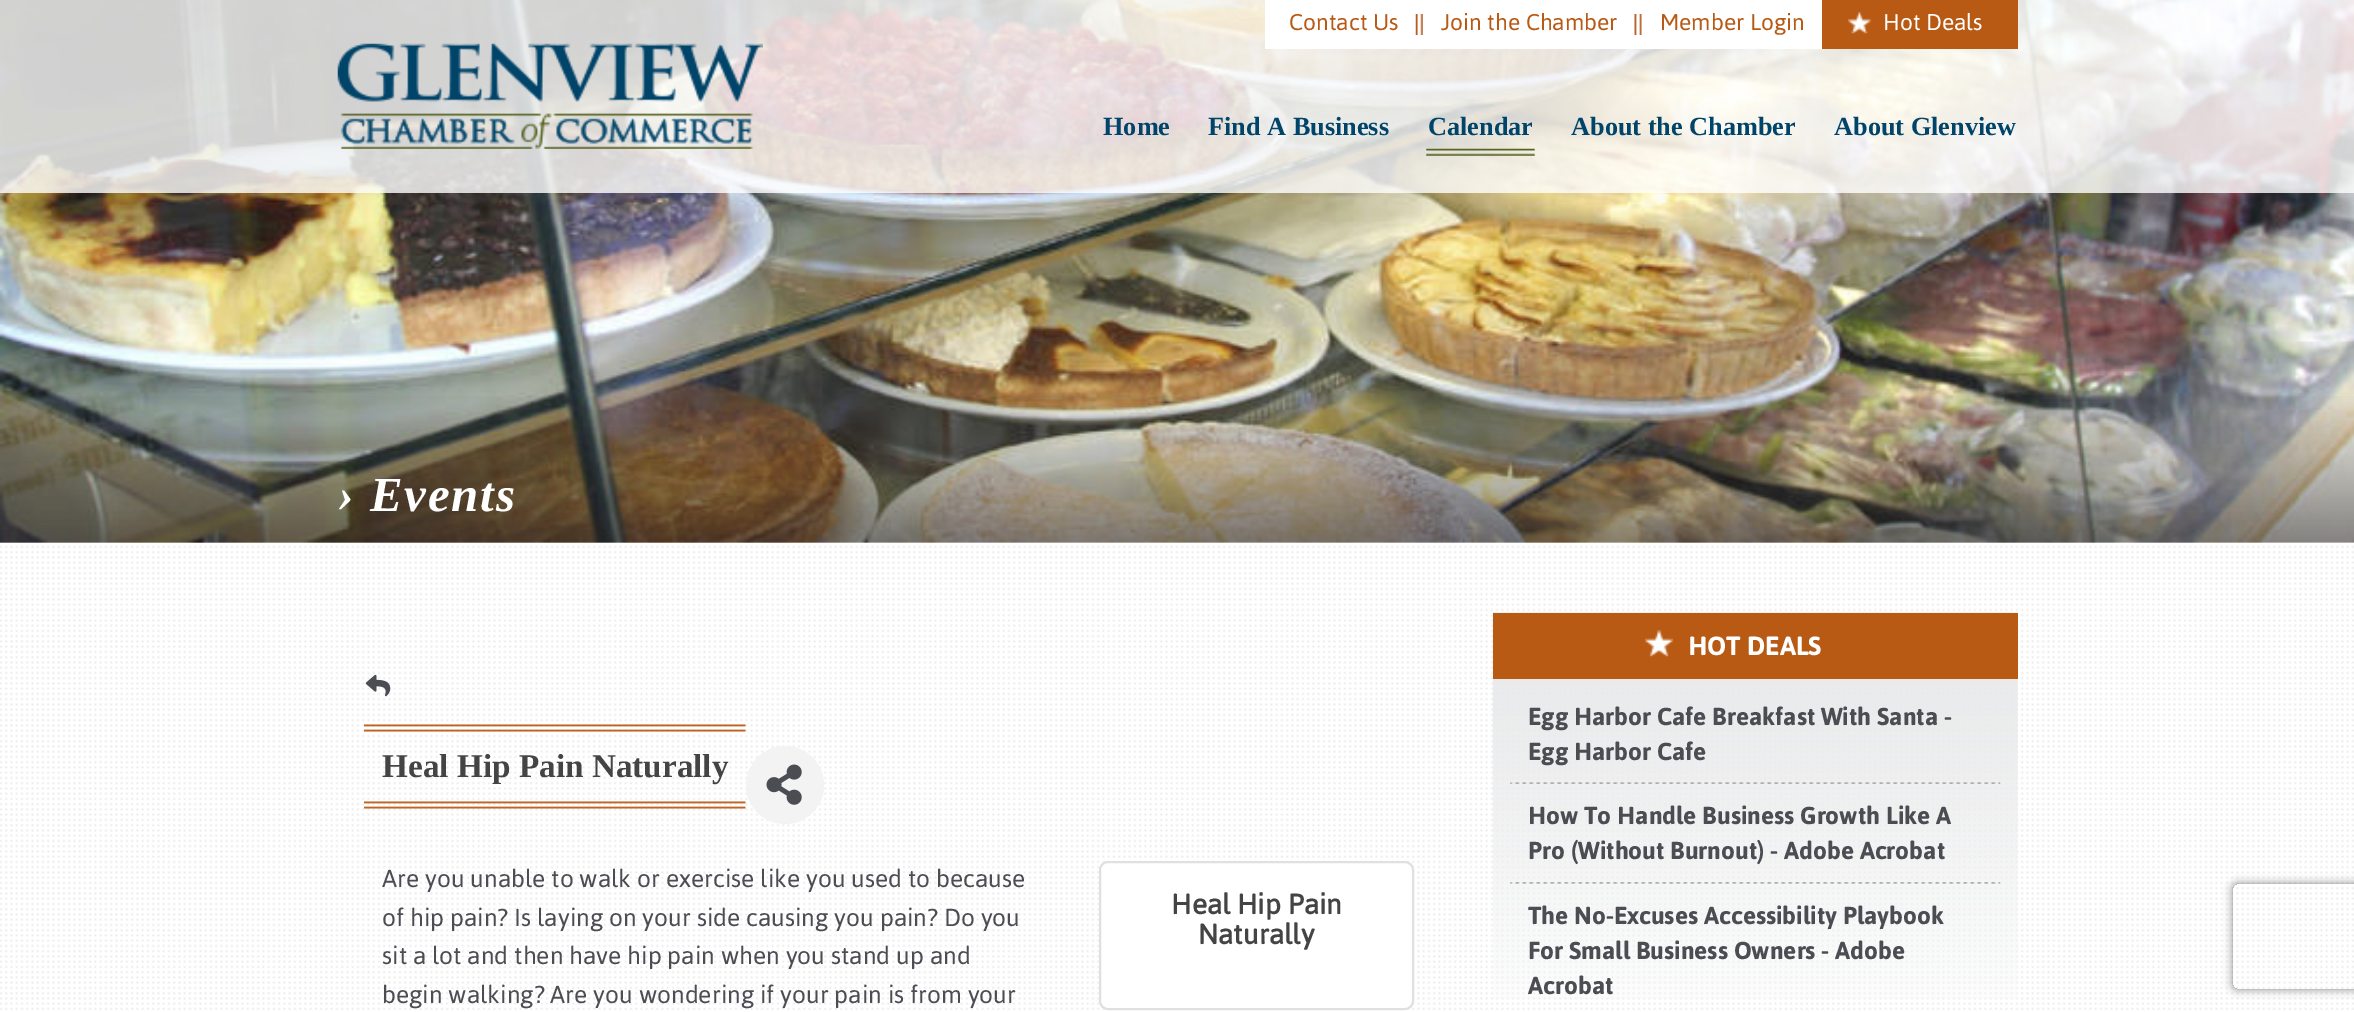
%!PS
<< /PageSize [2354 1012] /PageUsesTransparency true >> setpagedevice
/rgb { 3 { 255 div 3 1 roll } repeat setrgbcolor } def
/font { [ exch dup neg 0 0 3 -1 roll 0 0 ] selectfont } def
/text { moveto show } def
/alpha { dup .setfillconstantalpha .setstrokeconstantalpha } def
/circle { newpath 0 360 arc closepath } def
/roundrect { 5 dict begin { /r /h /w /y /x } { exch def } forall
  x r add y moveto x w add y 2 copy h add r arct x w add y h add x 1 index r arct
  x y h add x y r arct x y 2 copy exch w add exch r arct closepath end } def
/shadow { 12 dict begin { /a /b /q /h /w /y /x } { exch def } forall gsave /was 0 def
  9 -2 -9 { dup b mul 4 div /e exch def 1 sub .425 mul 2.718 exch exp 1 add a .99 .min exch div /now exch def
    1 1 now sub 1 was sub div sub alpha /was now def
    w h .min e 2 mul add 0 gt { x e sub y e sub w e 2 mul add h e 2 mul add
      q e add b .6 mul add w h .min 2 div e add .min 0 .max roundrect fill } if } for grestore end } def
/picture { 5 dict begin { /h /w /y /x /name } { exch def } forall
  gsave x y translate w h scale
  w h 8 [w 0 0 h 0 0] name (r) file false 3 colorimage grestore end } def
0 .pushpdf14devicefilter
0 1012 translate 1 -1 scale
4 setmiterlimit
255 255 255 rgb
0 0 2354 1012 rectfill
(img_01.rgb) 0 543 2354 467 picture
216 216 216 rgb
0 542 2354 1 rectfill
(img_02.rgb) 0 0 2354 543 picture
0.8 alpha
255 255 255 rgb
0 0 2354 193 rectfill
1 alpha
1265 0 557 49 rectfill
(img_03.rgb) 1415 14 8 21 picture
(img_04.rgb) 1634 14 8 21 picture
184 89 20 rgb
1822 0 196 49 rectfill
(img_05.rgb) 1848 12 23 22 picture
(img_06.rgb) 337 43 426 106 picture
(img_07.rgb) 1426 148 109 8 picture
(img_08.rgb) 0 396 2354 147 picture
(img_09.rgb) 365 674 26 23 picture
(img_10.rgb) 364 724 382 85 picture
243 243 243 rgb
785 785 39 circle fill
(img_11.rgb) 766 764 36 41 picture
255 255 255 rgb
1099 861 315 149 9 roundrect fill
0.12 alpha
0 0 0 rgb
2 setlinewidth
1100 862 313 147 8 roundrect stroke
1 alpha
(img_12.rgb) 1492 612 526 387 picture
184 89 20 rgb
1493 613 525 66 rectfill
(img_13.rgb) 1645 630 28 27 picture
(img_14.rgb) 1510 782 491 2 picture
(img_15.rgb) 1510 882 491 2 picture
gsave
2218 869 moveto 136 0 rlineto 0 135 rlineto -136 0 rlineto closepath 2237 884 moveto 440 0 rlineto 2 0 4 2 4 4 rcurveto 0 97 rlineto 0 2 -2 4 -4 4 rcurveto -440 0 rlineto -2 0 -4 -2 -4 -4 rcurveto 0 -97 rlineto 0 -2 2 -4 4 -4 rcurveto closepath eoclip newpath
128 128 128 rgb
2233 884 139 105 4 4.5 1 shadow
grestore
/Asap-Regular 22.75 font
(Contact Us) 1289 30 text
(Join the Chamber) 1441 30 text
(Member Login) 1660 30 text
255 255 255 rgb
(Hot Deals) 1883 30 text
/LiberationSerif-Bold 26.25 font
0 68 106 rgb
(Home) 1103 135 text
(Find A Business) 1208 135 text
(Calendar) 1428 135 text
(About the Chamber) 1571 135 text
(About Glenview) 1834 135 text
/LiberationSerif-BoldItalic 49 font
255 255 255 rgb
338 511 moveto 1.75 0 (› Events) ashow
/LiberationSerif-Bold 33.25 font
68 68 68 rgb
(Heal Hip Pain Naturally) 382 777 text
/Asap-Regular 24.5 font
76 76 83 rgb
(Are you unable to walk or exercise like you used to because) 382 887 text
(of hip pain? Is laying on your side causing you pain? Do you) 382 926 text
(sit a lot and then have hip pain when you stand up and) 382 964 text
(begin walking? Are you wondering if your pain is from your) 382 1003 text
/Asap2-Bold 28 font
68 68 68 rgb
(Heal Hip Pain) 1171 914 text
(Naturally) 1198 944 text
/Asap-Bold 26.25 font
255 255 255 rgb
(HOT DEALS) 1688 655 text
/Asap-Bold 24.5 font
76 76 83 rgb
(Egg Harbor Cafe Breakfast With Santa -) 1528 725 text
(Egg Harbor Cafe) 1528 760 text
(How To Handle Business Growth Like A) 1528 824 text
(Pro \(Without Burnout\) - Adobe Acrobat) 1528 859 text
(The No-Excuses Accessibility Playbook) 1528 924 text
(For Small Business Owners - Adobe) 1528 959 text
(Acrobat) 1528 994 text
.poppdf14devicefilter showpage
